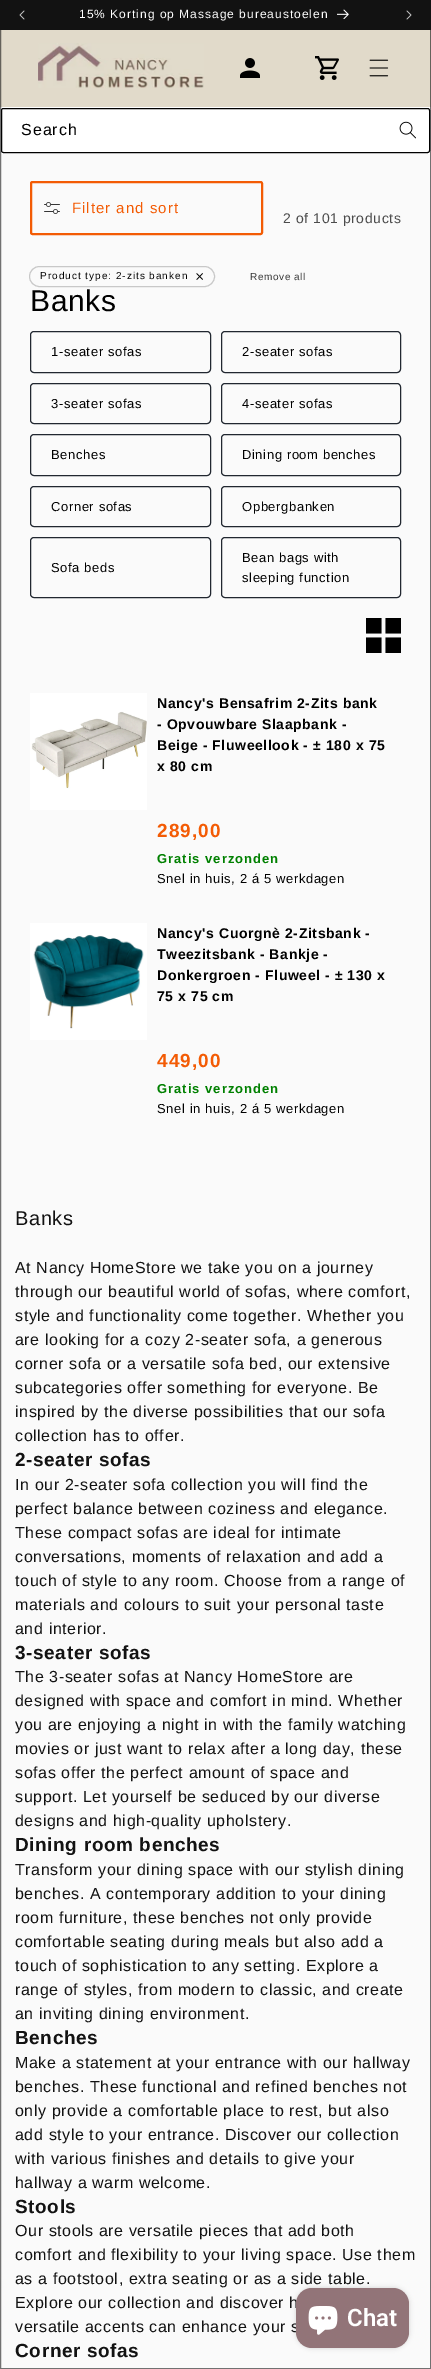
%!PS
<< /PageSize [431 2369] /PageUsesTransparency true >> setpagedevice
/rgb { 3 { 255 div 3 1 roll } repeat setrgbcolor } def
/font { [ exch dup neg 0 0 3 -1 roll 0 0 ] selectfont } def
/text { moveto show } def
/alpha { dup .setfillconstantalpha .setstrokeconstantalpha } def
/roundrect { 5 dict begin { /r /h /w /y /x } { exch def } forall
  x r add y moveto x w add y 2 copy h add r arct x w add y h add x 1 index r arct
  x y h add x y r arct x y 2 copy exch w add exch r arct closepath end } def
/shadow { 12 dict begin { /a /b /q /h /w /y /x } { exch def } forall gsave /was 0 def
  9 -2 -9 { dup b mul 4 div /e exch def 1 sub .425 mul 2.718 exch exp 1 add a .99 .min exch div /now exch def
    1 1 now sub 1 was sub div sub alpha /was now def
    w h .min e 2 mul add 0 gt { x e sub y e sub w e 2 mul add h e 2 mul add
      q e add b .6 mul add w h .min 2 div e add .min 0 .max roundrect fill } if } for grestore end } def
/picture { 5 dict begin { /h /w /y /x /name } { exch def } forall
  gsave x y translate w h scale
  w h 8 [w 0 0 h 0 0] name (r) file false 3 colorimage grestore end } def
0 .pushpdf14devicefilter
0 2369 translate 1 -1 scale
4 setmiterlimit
250 250 250 rgb
0 0 431 2369 rectfill
225 218 202 rgb
0 30 431 77 rectfill
(img_04.rgb) 38 43 166 45 picture
(img_05.rgb) 240 58 20 20 picture
(img_06.rgb) 315 56 24 24 picture
(img_07.rgb) 369 59 20 18 picture
255 255 255 rgb
0 107 431 47 rectfill
0 0 0 rgb
1.5 108.5 428 44 2 roundrect stroke
(img_08.rgb) 399 121 17 18 picture
243 91 4 rgb
2 setlinewidth
31 182 231 52 1.5 roundrect stroke
(img_09.rgb) 44 202 16 12 picture
200 200 200 rgb
1 setlinewidth
29.5 266.5 185 20 10 roundrect stroke
(img_10.rgb) 196 273 7 7 picture
33 39 48 rgb
30.5 331.5 180 41 3.5 roundrect stroke
221.5 331.5 179 41 3.5 roundrect stroke
30.5 383.5 180 40 3.5 roundrect stroke
221.5 383.5 179 40 3.5 roundrect stroke
30.5 434.5 180 41 3.5 roundrect stroke
221.5 434.5 179 41 3.5 roundrect stroke
30.5 486.5 180 40 3.5 roundrect stroke
221.5 486.5 179 40 3.5 roundrect stroke
30.5 537.5 180 60 3.5 roundrect stroke
221.5 537.5 179 60 3.5 roundrect stroke
(img_11.rgb) 366 618 35 35 picture
(img_12.rgb) 30 693 117 117 picture
(img_13.rgb) 30 923 117 117 picture
0.55 alpha
0 0 0 rgb
0.5 0.5 430 2368 rectstroke
1 alpha
18 18 18 rgb
0 0 431 30 rectfill
(img_01.rgb) 19 10 6 10 picture
(img_02.rgb) 337 9 12 10 picture
(img_03.rgb) 406 10 6 10 picture
0 0 0 rgb
296 2288 113 60 16 2.5 0.15 shadow
/Arimo-Regular 12 font
255 255 255 rgb
79 18 moveto 1 0 (15% Korting op Massage bureaustoelen) ashow
/Arimo-Regular 16 font
0 0 0 rgb
21 135 moveto 1 0 (Search) ashow
/Arimo-Regular 15 font
243 91 4 rgb
72 213 moveto 1 0 (Filter and sort) ashow
/Arimo-Regular 14 font
75 75 75 rgb
283 223 moveto 0.6 0 (2 of 101 products) ashow
/Arimo-Regular 10 font
0 0 0 rgb
40 279 moveto 1 0 (Product type: 2-zits banken) ashow
53 53 53 rgb
250 280 moveto 0.6 0 (Remove all) ashow
/Arimo-Regular 30 font
0 0 0 rgb
30 311 moveto 0.6 0 (Banks) ashow
/Arimo-Regular 13 font
51 356 moveto 0.6 0 (1-seater sofas) ashow
242 356 moveto 0.6 0 (2-seater sofas) ashow
51 408 moveto 0.6 0 (3-seater sofas) ashow
242 408 moveto 0.6 0 (4-seater sofas) ashow
51 459 moveto 0.6 0 (Benches) ashow
242 459 moveto 0.6 0 (Dining room benches) ashow
51 511 moveto 0.6 0 (Corner sofas) ashow
242 511 moveto 0.6 0 (Opbergbanken) ashow
51 572 moveto 0.6 0 (Sofa beds) ashow
242 562 moveto 0.6 0 (Bean bags with) ashow
242 582 moveto 0.6 0 (sleeping function) ashow
/Arimo-Bold 14 font
157 708 moveto 0.6 0 (Nancy's Bensafrim 2-Zits bank) ashow
157 729 moveto 0.6 0 (- Opvouwbare Slaapbank -) ashow
157 750 moveto 0.6 0 (Beige - Fluweellook - ± 180 x 75) ashow
157 771 moveto 0.6 0 (x 80 cm) ashow
/Arimo-Bold 19 font
243 91 4 rgb
157 837 moveto 1 0 (289,00) ashow
/Arimo-Bold 13 font
0 128 0 rgb
157 863 moveto 1 0 (Gratis verzonden) ashow
/Arimo-Regular 13 font
0 0 0 rgb
157 883 moveto 0.6 0 (Snel in huis, 2 á 5 werkdagen) ashow
/Arimo-Bold 14 font
157 938 moveto 0.6 0 (Nancy's Cuorgnè 2-Zitsbank -) ashow
157 959 moveto 0.6 0 (Tweezitsbank - Bankje -) ashow
157 980 moveto 0.6 0 (Donkergroen - Fluweel - ± 130 x) ashow
157 1001 moveto 0.6 0 (75 x 75 cm) ashow
/Arimo-Bold 19 font
243 91 4 rgb
157 1067 moveto 1 0 (449,00) ashow
/Arimo-Bold 13 font
0 128 0 rgb
157 1093 moveto 1 0 (Gratis verzonden) ashow
/Arimo-Regular 13 font
0 0 0 rgb
157 1113 moveto 0.6 0 (Snel in huis, 2 á 5 werkdagen) ashow
/Arimo-Regular 20 font
18 18 18 rgb
15 1225 moveto 0.6 0 (Banks) ashow
/Arimo-Regular 16 font
15 1273 moveto 0.6 0 (At Nancy HomeStore we take you on a journey) ashow
15 1297 moveto 0.6 0 (through our beautiful world of sofas, where comfort,) ashow
15 1321 moveto 0.6 0 (style and functionality come together. Whether you) ashow
15 1345 moveto 0.6 0 (are looking for a cozy 2-seater sofa, a generous) ashow
15 1369 moveto 0.6 0 (corner sofa or a versatile sofa bed, our extensive) ashow
15 1393 moveto 0.6 0 (subcategories offer something for everyone. Be) ashow
15 1417 moveto 0.6 0 (inspired by the diverse possibilities that our sofa) ashow
15 1441 moveto 0.6 0 (collection has to offer.) ashow
/Arimo-Bold 19 font
15 1466 moveto 0.6 0 (2-seater sofas) ashow
/Arimo-Regular 16 font
15 1490 moveto 0.6 0 (In our 2-seater sofa collection you will find the) ashow
15 1514 moveto 0.6 0 (perfect balance between coziness and elegance.) ashow
15 1538 moveto 0.6 0 (These compact sofas are ideal for intimate) ashow
15 1562 moveto 0.6 0 (conversations, moments of relaxation and add a) ashow
15 1586 moveto 0.6 0 (touch of style to any room. Choose from a range of) ashow
15 1610 moveto 0.6 0 (materials and colours to suit your personal taste) ashow
15 1634 moveto 0.6 0 (and interior.) ashow
/Arimo-Bold 19 font
15 1659 moveto 0.6 0 (3-seater sofas) ashow
/Arimo-Regular 16 font
15 1682 moveto 0.6 0 (The 3-seater sofas at Nancy HomeStore are) ashow
15 1706 moveto 0.6 0 (designed with space and comfort in mind. Whether) ashow
15 1730 moveto 0.6 0 (you are enjoying a night in with the family watching) ashow
15 1754 moveto 0.6 0 (movies or just want to relax after a long day, these) ashow
15 1778 moveto 0.6 0 (sofas offer the perfect amount of space and) ashow
15 1802 moveto 0.6 0 (support. Let yourself be seduced by our diverse) ashow
15 1826 moveto 0.6 0 (designs and high-quality upholstery.) ashow
/Arimo-Bold 19 font
15 1851 moveto 0.6 0 (Dining room benches) ashow
/Arimo-Regular 16 font
15 1875 moveto 0.6 0 (Transform your dining space with our stylish dining) ashow
15 1899 moveto 0.6 0 (benches. A contemporary addition to your dining) ashow
15 1923 moveto 0.6 0 (room furniture, these benches not only provide) ashow
15 1947 moveto 0.6 0 (comfortable seating during meals but also add a) ashow
15 1971 moveto 0.6 0 (touch of sophistication to any setting. Explore a) ashow
15 1995 moveto 0.6 0 (range of styles, from modern to classic, and create) ashow
15 2019 moveto 0.6 0 (an inviting dining environment.) ashow
/Arimo-Bold 19 font
15 2044 moveto 0.6 0 (Benches) ashow
/Arimo-Regular 16 font
15 2068 moveto 0.6 0 (Make a statement at your entrance with our hallway) ashow
15 2092 moveto 0.6 0 (benches. These functional and refined benches not) ashow
15 2116 moveto 0.6 0 (only provide a comfortable place to rest, but also) ashow
15 2140 moveto 0.6 0 (add style to your entrance. Discover our collection) ashow
15 2164 moveto 0.6 0 (with various finishes and details to give your) ashow
15 2188 moveto 0.6 0 (hallway a warm welcome.) ashow
/Arimo-Bold 19 font
15 2213 moveto 0.6 0 (Stools) ashow
/Arimo-Regular 16 font
15 2236 moveto 0.6 0 (Our stools are versatile pieces that add both) ashow
15 2260 moveto 0.6 0 (comfort and flexibility to your living space. Use them) ashow
15 2284 moveto 0.6 0 (as a footstool, extra seating or as a side table.) ashow
15 2308 moveto 0.6 0 (Explore our collection and discover h) ashow
15 2332 moveto 0.6 0 (versatile accents can enhance your s) ashow
/Arimo-Bold 19 font
15 2357 moveto 0.6 0 (Corner sofas) ashow
146 116 120 rgb
296 2288 113 60 16 roundrect fill
(img_14.rgb) 308 2306 30 29 picture
/Roboto-SemiBold 24 font
255 255 255 rgb
(Chat) 347 2326 text
.poppdf14devicefilter showpage
